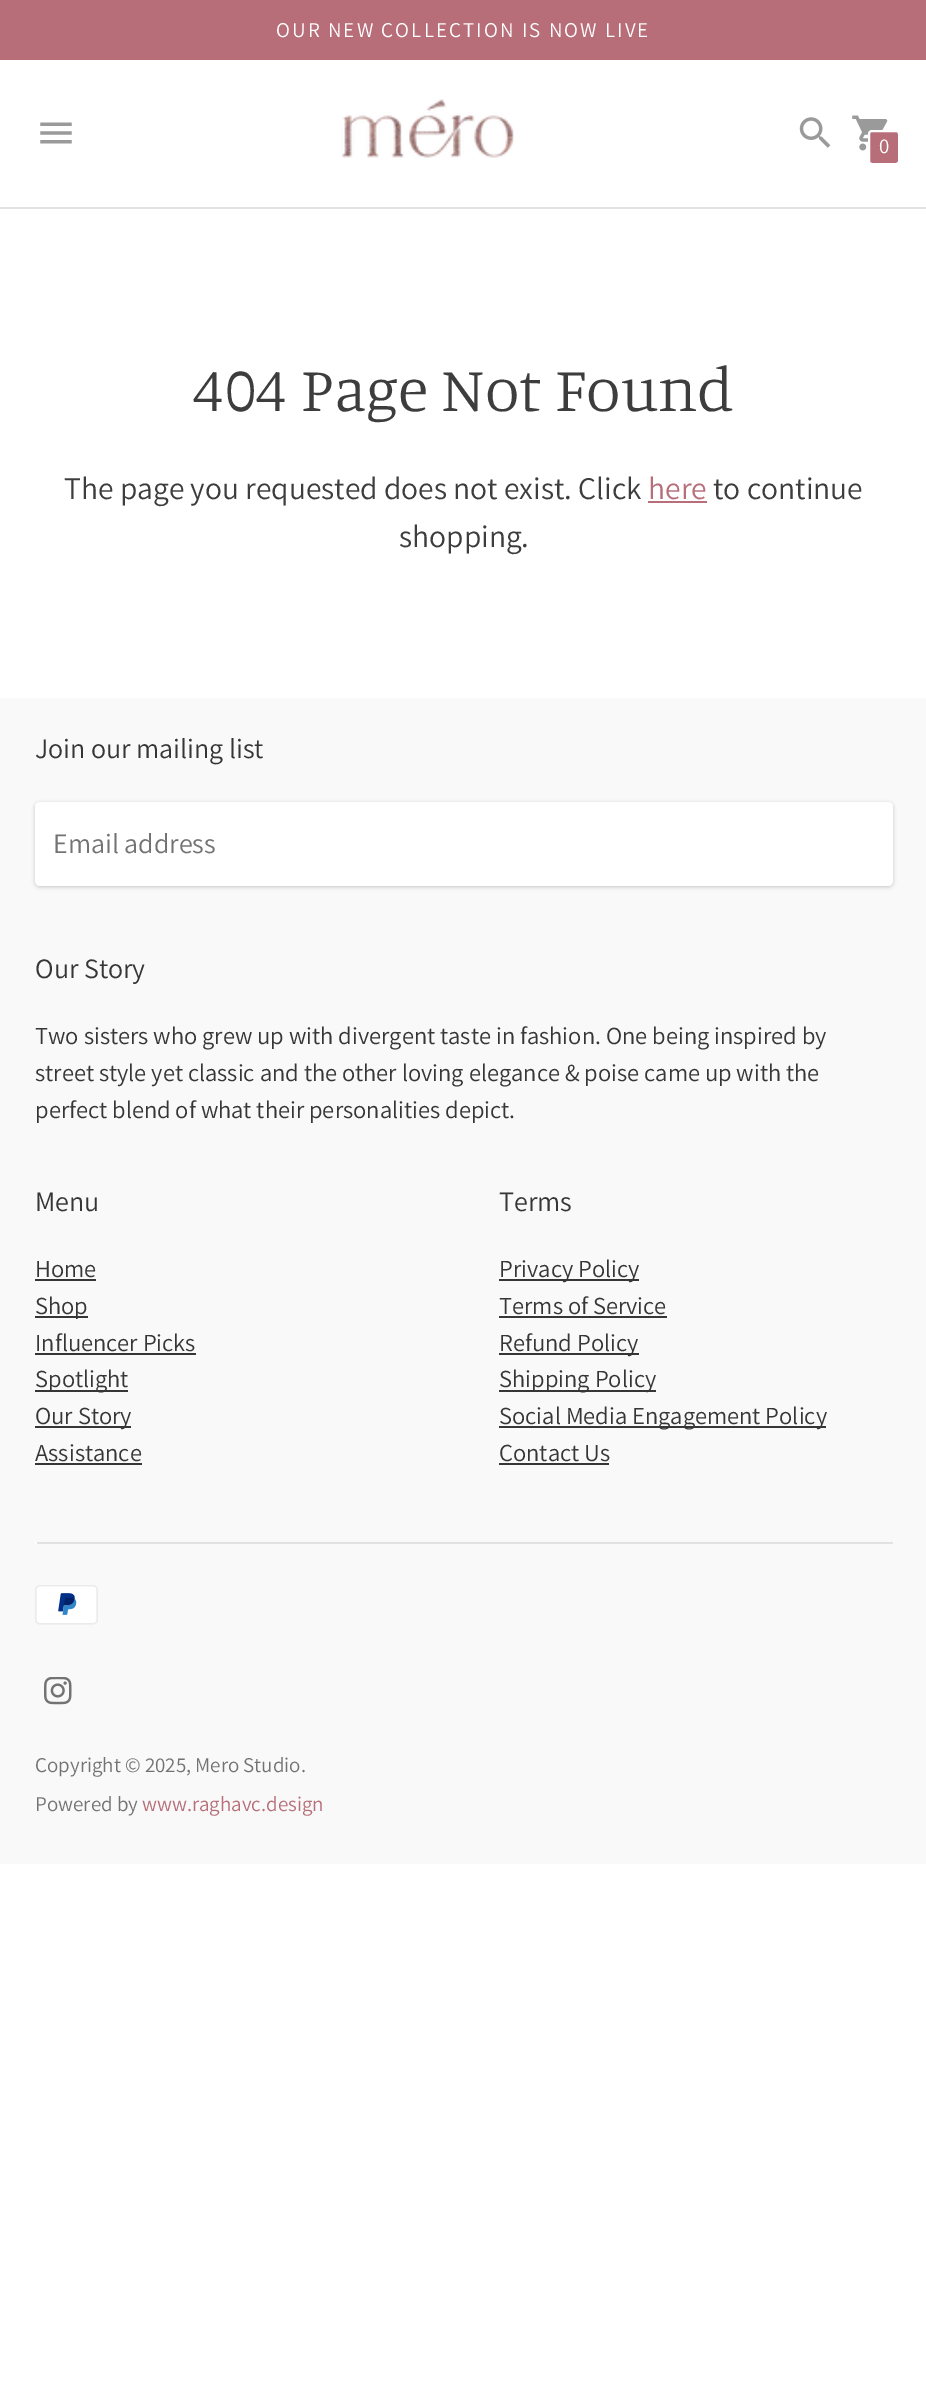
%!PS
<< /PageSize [926 2383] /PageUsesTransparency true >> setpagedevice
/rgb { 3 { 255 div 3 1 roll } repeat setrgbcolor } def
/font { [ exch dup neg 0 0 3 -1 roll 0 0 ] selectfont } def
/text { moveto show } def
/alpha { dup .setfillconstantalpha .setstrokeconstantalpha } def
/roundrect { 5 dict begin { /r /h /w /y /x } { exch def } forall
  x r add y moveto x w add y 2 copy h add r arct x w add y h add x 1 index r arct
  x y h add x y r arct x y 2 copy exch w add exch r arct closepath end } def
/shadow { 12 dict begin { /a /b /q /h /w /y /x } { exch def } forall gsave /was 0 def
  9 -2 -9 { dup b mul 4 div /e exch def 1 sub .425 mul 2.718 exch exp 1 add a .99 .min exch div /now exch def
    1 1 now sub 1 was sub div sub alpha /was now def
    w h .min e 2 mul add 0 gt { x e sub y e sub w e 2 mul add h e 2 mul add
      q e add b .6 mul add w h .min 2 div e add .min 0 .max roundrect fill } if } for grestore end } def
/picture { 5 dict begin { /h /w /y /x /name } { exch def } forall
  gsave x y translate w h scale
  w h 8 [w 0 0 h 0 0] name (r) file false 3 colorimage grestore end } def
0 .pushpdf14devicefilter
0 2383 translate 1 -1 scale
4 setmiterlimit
255 255 255 rgb
0 0 926 2383 rectfill
183 110 121 rgb
0 0 926 60 rectfill
226 226 226 rgb
0 207 926 2 rectfill
(img_01.rgb) 40 122 32 22 picture
(img_02.rgb) 341 99 173 59 picture
(img_03.rgb) 799 117 32 31 picture
(img_04.rgb) 852 115 36 36 picture
183 110 121 rgb
869 131 30 33 3 roundrect gsave fill grestore
255 255 255 rgb
2 setlinewidth
stroke
183 110 121 rgb
648 501 59 2 rectfill
249 249 249 rgb
0 698 926 1166 rectfill
0 0 0 rgb
35 803 858 84 5 2 0.2 shadow
255 255 255 rgb
35 802 858 84 5 roundrect fill
54 54 54 rgb
35 1279 61 2 rectfill
35 1316 53 2 rectfill
35 1353 161 2 rectfill
35 1390 93 2 rectfill
35 1426 96 2 rectfill
35 1463 107 2 rectfill
499 1279 140 2 rectfill
499 1316 168 2 rectfill
499 1353 140 2 rectfill
499 1390 157 2 rectfill
499 1426 327 2 rectfill
499 1463 110 2 rectfill
226 226 226 rgb
35 1542 858 2 rectfill
255 255 255 rgb
35 1542 2 2 rectfill
(img_05.rgb) 35 1585 63 40 picture
(img_06.rgb) 44 1677 28 28 picture
/Assistant-Regular 21 font
276 37 moveto 2.1 0 (OUR NEW COLLECTION IS NOW LIVE) ashow
(0) 879 153 text
/Manuale-Light 63 font
61 61 61 rgb
(404 Page Not Found) 193 411 text
/Assistant-Regular 31.5 font
(The page you requested does not exist. Click) 64 499 text
183 110 121 rgb
(here) 648 499 text
61 61 61 rgb
(to continue) 713 499 text
(shopping.) 399 547 text
/Assistant-Regular 28 font
54 54 54 rgb
(Join our mailing list) 35 758 text
115 115 115 rgb
(Email address) 53 853 text
54 54 54 rgb
(Our Story) 35 978 text
/Assistant-Regular 24.5 font
(Two sisters who grew up with divergent taste in fashion. One being inspired by) 35 1044 text
(street style yet classic and the other loving elegance & poise came up with the) 35 1081 text
(perfect blend of what their personalities depict.) 35 1118 text
/Assistant-Regular 28 font
(Menu) 35 1211 text
/Assistant-Regular 24.5 font
(Home) 35 1277 text
(Shop) 35 1314 text
(Influencer Picks) 35 1351 text
(Spotlight) 35 1387 text
(Our Story) 35 1424 text
(Assistance) 35 1461 text
/Assistant-Regular 28 font
(Terms) 499 1211 text
/Assistant-Regular 24.5 font
(Privacy Policy) 499 1277 text
(Terms of Service) 499 1314 text
(Refund Policy) 499 1351 text
(Shipping Policy) 499 1387 text
(Social Media Engagement Policy) 499 1424 text
(Contact Us) 499 1461 text
/Assistant-Regular 21 font
115 115 115 rgb
(Copyright © 2025, Mero Studio.) 35 1772 text
(Powered by) 35 1811 text
183 110 121 rgb
(www.raghavc.design) 142 1811 text
.poppdf14devicefilter showpage
